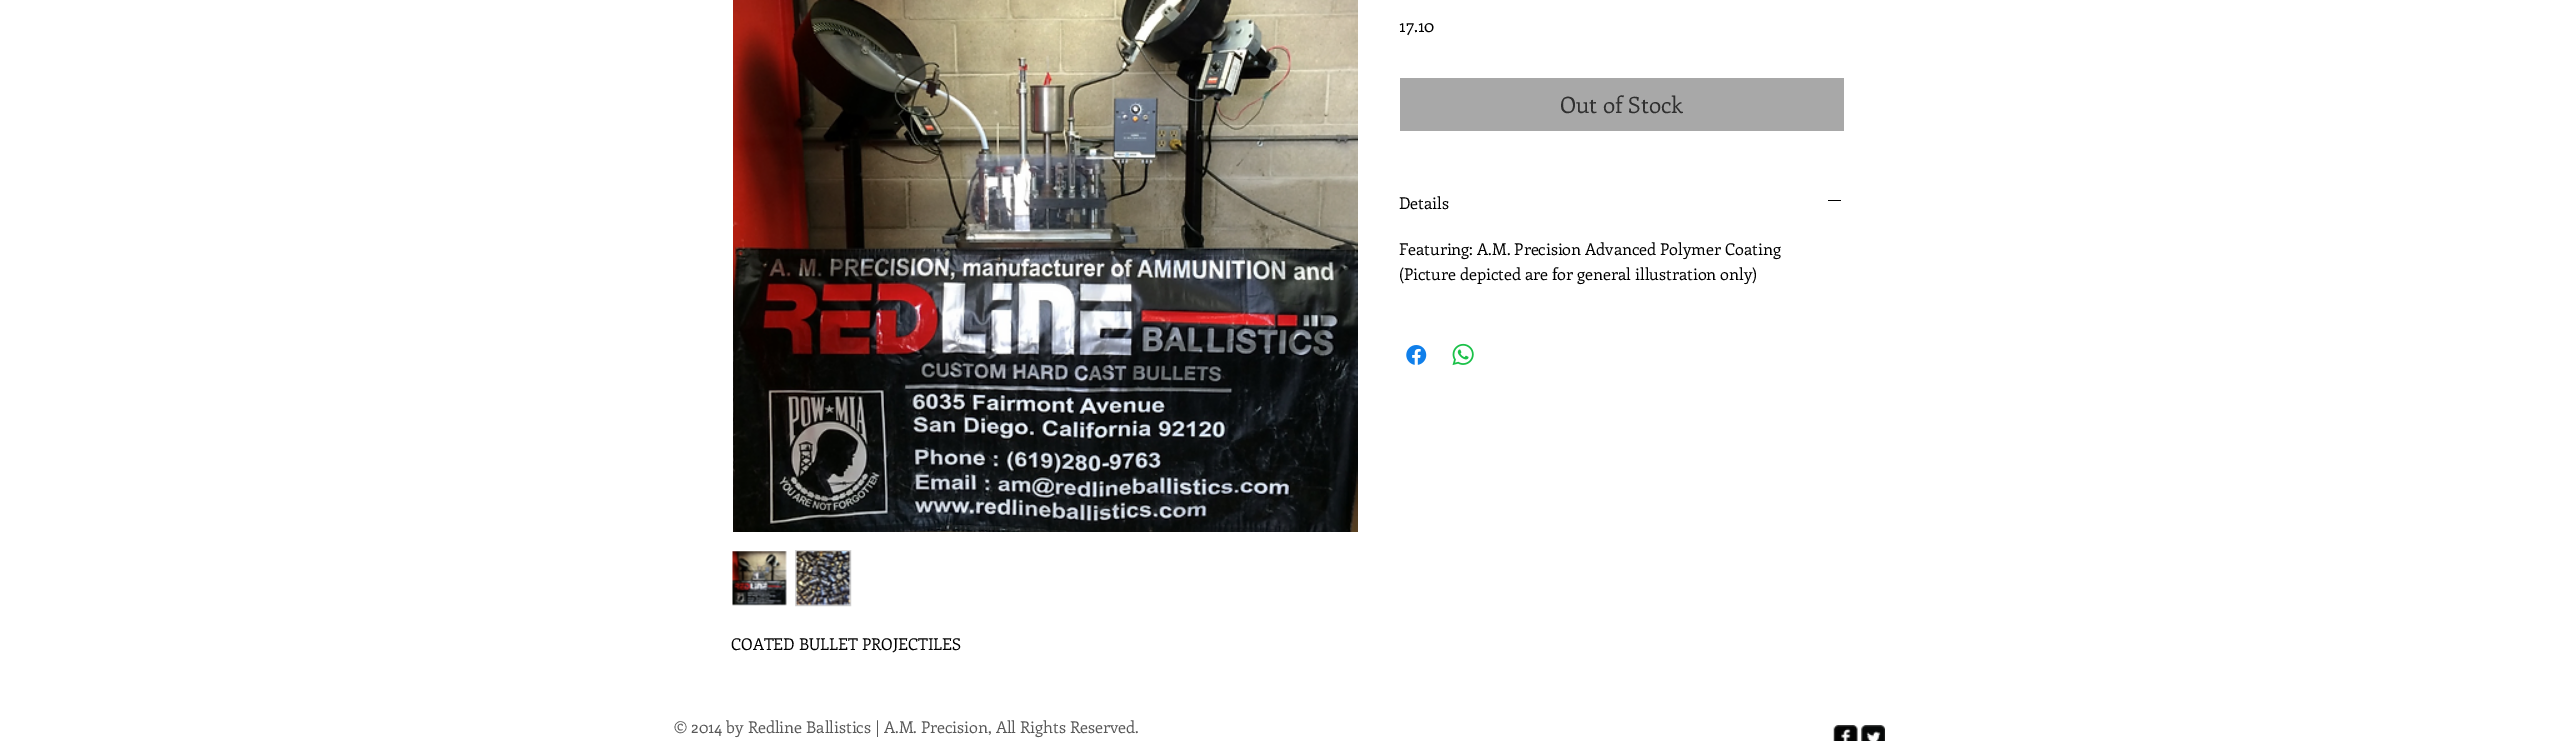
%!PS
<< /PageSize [2573 741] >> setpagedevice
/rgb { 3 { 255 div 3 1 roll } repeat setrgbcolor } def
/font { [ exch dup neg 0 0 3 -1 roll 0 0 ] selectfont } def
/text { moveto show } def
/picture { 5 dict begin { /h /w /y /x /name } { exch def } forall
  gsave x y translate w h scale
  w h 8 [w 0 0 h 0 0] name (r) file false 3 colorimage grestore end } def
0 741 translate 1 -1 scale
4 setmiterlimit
255 255 255 rgb
0 0 2573 741 rectfill
168 168 168 rgb
1400 78 444 53 rectfill
0 0 0 rgb
1828 200 13 1 rectfill
(img_01.rgb) 1406 345 21 20 picture
(img_02.rgb) 1452 343 22 23 picture
(img_03.rgb) 733 0 625 532 picture
(img_04.rgb) 732 551 55 55 picture
214 214 214 rgb
795.5 550.5 55 55 rectstroke
(img_05.rgb) 795 551 56 55 picture
(img_06.rgb) 1833 725 25 16 picture
(img_07.rgb) 1861 725 24 16 picture
/Enriqueta-Regular 17.5 font
0 0 0 rgb
(17.10) 1399 32 text
/Enriqueta-Regular 22.5 font
48 48 48 rgb
(Out of Stock) 1560 113 text
/Enriqueta-Regular 16.25 font
0 0 0 rgb
(Details) 1399 209 text
(Featuring: A.M. Precision Advanced Polymer Coating) 1399 255 text
(\(Picture depicted are for general illustration only\)) 1399 280 text
(COATED BULLET PROJECTILES) 731 650 text
89 89 89 rgb
(© 2014 by Redline Ballistics | A.M. Precision, All Rights Reserved.) 674 733 text
showpage
